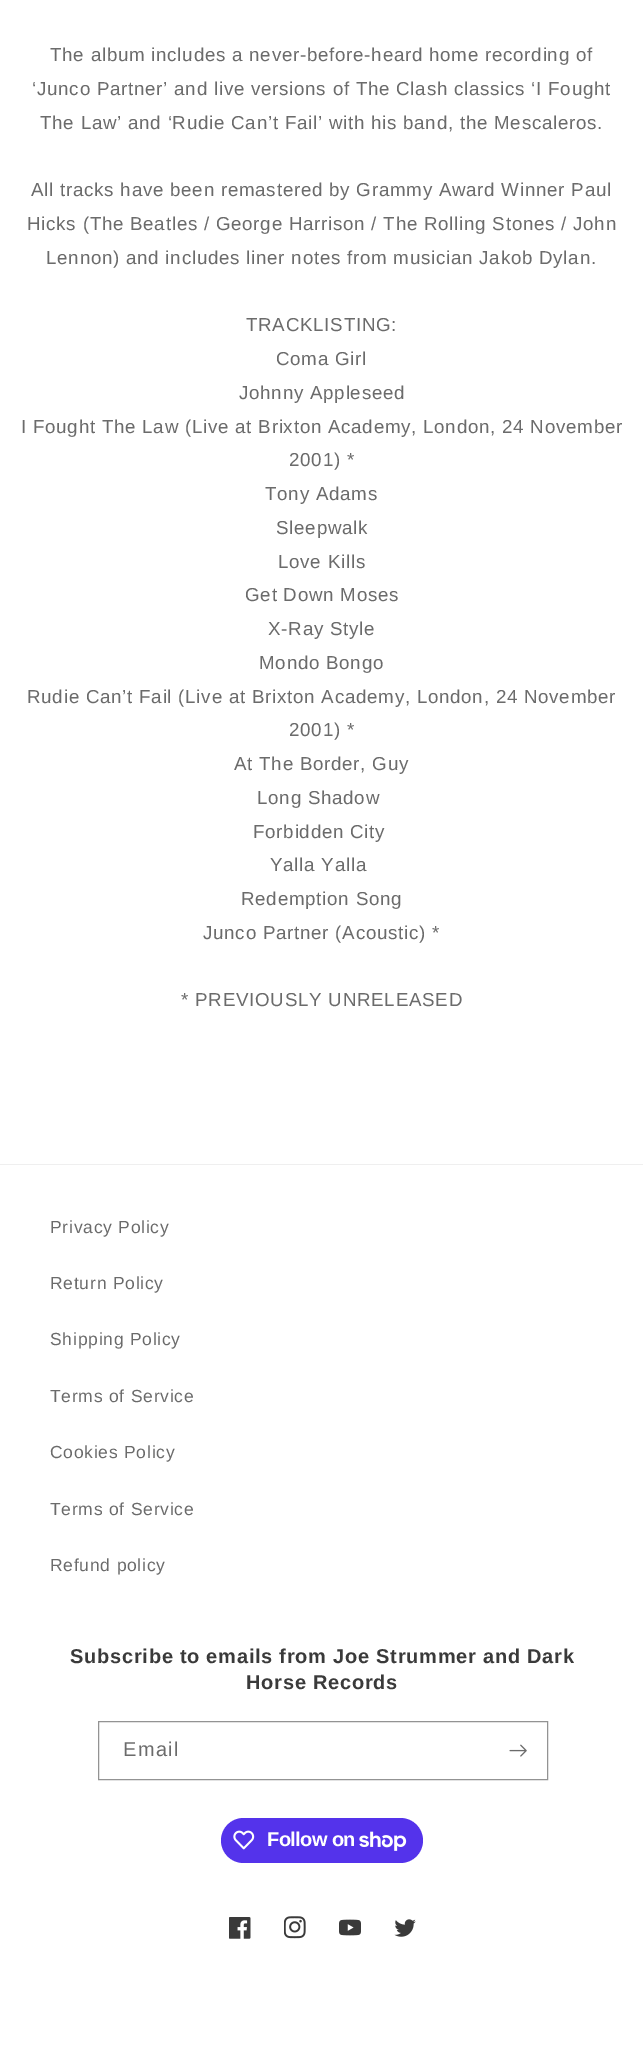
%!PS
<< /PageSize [643 2069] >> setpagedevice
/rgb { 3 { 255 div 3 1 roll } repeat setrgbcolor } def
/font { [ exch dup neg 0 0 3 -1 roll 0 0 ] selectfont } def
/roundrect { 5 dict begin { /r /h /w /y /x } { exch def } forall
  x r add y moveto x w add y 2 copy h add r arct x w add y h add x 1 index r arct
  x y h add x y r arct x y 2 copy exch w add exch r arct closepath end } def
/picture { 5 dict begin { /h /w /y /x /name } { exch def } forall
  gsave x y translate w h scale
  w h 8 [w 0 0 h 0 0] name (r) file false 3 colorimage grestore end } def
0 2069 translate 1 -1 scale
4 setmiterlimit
255 255 255 rgb
0 0 643 2069 rectfill
239 239 239 rgb
0 1164 643 1 rectfill
147 147 147 rgb
98.5 1721.5 449 58 rectstroke
(img_01.rgb) 509 1744 18 13 picture
84 51 235 rgb
221 1818 202 45 22.5 roundrect fill
(img_02.rgb) 233 1830 22 20 picture
(img_03.rgb) 359 1831 48 20 picture
(img_04.rgb) 229 1917 22 22 picture
(img_05.rgb) 284 1916 22 23 picture
(img_06.rgb) 339 1919 22 17 picture
(img_07.rgb) 394 1919 22 18 picture
/LiberationSans-Regular 18.75 font
107 107 107 rgb
50 61 moveto 0.75 0 (The album includes a never-before-heard home recording of) ashow
32 95 moveto 0.75 0 (‘Junco Partner’ and live versions of The Clash classics ‘I Fought) ashow
40 129 moveto 0.75 0 (The Law’ and ‘Rudie Can’t Fail’ with his band, the Mescaleros.) ashow
31 196 moveto 0.75 0 (All tracks have been remastered by Grammy Award Winner Paul) ashow
27 230 moveto 0.75 0 (Hicks \(The Beatles / George Harrison / The Rolling Stones / John) ashow
46 264 moveto 0.75 0 (Lennon\) and includes liner notes from musician Jakob Dylan.) ashow
246 331 moveto 0.75 0 (TRACKLISTING:) ashow
276 365 moveto 0.75 0 (Coma Girl) ashow
239 399 moveto 0.75 0 (Johnny Appleseed) ashow
21 433 moveto 0.75 0 (I Fought The Law \(Live at Brixton Academy, London, 24 November) ashow
289 466 moveto 0.75 0 (2001\) *) ashow
265 500 moveto 0.75 0 (Tony Adams) ashow
276 534 moveto 0.75 0 (Sleepwalk) ashow
278 568 moveto 0.75 0 (Love Kills) ashow
245 601 moveto 0.75 0 (Get Down Moses) ashow
268 635 moveto 0.75 0 (X-Ray Style) ashow
259 669 moveto 0.75 0 (Mondo Bongo) ashow
27 703 moveto 0.75 0 (Rudie Can’t Fail \(Live at Brixton Academy, London, 24 November) ashow
289 736 moveto 0.75 0 (2001\) *) ashow
234 770 moveto 0.75 0 (At The Border, Guy) ashow
257 804 moveto 0.75 0 (Long Shadow) ashow
253 838 moveto 0.75 0 (Forbidden City) ashow
270 871 moveto 0.75 0 (Yalla Yalla) ashow
241 905 moveto 0.75 0 (Redemption Song) ashow
203 939 moveto 0.75 0 (Junco Partner \(Acoustic\) *) ashow
181 1006 moveto 0.75 0 (* PREVIOUSLY UNRELEASED) ashow
/LiberationSans-Regular 17.5 font
50 1233 moveto 0.75 0 (Privacy Policy) ashow
50 1289 moveto 0.75 0 (Return Policy) ashow
50 1345 moveto 0.75 0 (Shipping Policy) ashow
50 1402 moveto 0.75 0 (Terms of Service) ashow
50 1458 moveto 0.75 0 (Cookies Policy) ashow
50 1515 moveto 0.75 0 (Terms of Service) ashow
50 1571 moveto 0.75 0 (Refund policy) ashow
/LiberationSans-Bold 20 font
58 58 58 rgb
70 1663 moveto 0.75 0 (Subscribe to emails from Joe Strummer and Dark) ashow
246 1689 moveto 0.75 0 (Horse Records) ashow
/LiberationSans-Regular 20 font
107 107 107 rgb
123 1756 moveto 1.25 0 (Email) ashow
/LiberationSans-Bold 20 font
255 255 255 rgb
267 1846 moveto -0.6 0 (Follow on) ashow
showpage
